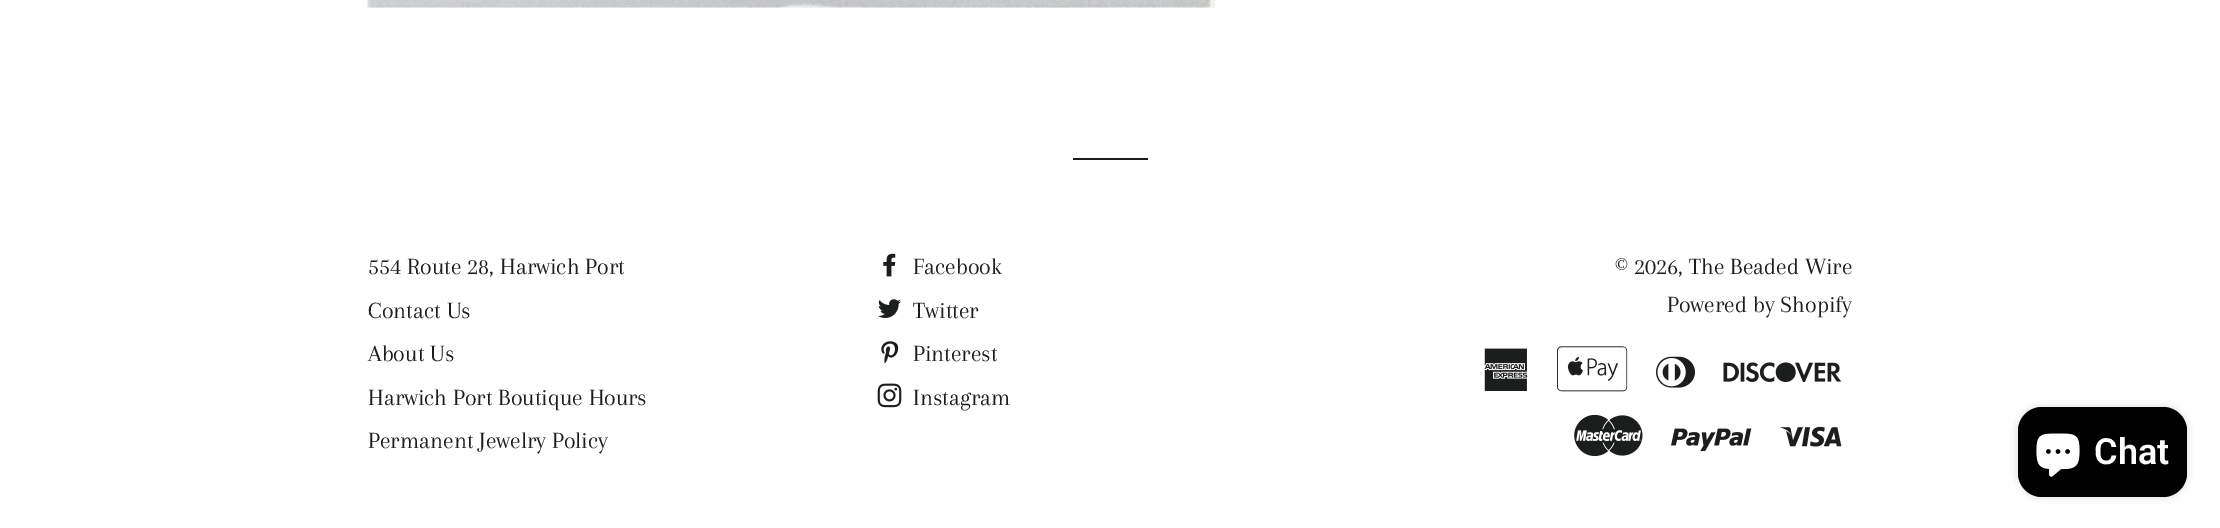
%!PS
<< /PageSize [2220 528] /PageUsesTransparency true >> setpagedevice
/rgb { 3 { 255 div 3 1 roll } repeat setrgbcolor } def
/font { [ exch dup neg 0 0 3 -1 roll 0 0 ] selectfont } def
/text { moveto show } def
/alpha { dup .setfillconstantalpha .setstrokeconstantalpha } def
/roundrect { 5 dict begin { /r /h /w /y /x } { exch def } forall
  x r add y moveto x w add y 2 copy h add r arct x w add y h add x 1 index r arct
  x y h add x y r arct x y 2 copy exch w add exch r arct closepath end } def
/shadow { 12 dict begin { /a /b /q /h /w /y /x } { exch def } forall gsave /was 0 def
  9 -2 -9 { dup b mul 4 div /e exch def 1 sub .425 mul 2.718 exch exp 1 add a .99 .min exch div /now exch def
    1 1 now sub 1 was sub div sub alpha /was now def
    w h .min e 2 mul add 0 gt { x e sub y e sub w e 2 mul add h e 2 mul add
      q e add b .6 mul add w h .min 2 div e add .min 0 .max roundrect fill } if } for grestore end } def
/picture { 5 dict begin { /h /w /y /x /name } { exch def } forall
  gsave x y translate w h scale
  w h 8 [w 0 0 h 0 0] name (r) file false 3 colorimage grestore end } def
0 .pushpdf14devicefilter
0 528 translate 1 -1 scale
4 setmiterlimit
255 255 255 rgb
0 0 2220 528 rectfill
247 247 247 rgb
368 7 847 1 rectfill
(img_01.rgb) 367 0 848 8 picture
28 29 29 rgb
1073 158 75 2 rectfill
(img_02.rgb) 883 253 13 24 picture
(img_03.rgb) 878 299 23 19 picture
(img_04.rgb) 881 341 18 23 picture
(img_05.rgb) 877 383 25 25 picture
(img_06.rgb) 1484 348 44 43 picture
(img_07.rgb) 1557 346 71 46 picture
(img_08.rgb) 1656 356 39 32 picture
(img_09.rgb) 1723 362 119 21 picture
(img_10.rgb) 1574 414 69 43 picture
(img_11.rgb) 1671 428 81 24 picture
(img_12.rgb) 1780 426 62 21 picture
0 0 0 rgb
2018 407 169 90 24 4 0.15 shadow
2018 407 169 90 24 roundrect fill
(img_13.rgb) 2036 433 44 44 picture
/Arapey-Regular 24 font
28 29 29 rgb
(554 Route 28, Harwich Port) 368 274 text
(Contact Us) 368 318 text
(About Us) 368 361 text
(Harwich Port Boutique Hours) 368 405 text
(Permanent Jewelry Policy) 368 448 text
(Facebook) 913 274 text
(Twitter) 913 318 text
(Pinterest) 913 361 text
(Instagram) 913 405 text
(© 2026, The Beaded Wire) 1615 274 text
(Powered by Shopify) 1667 312 text
/Roboto-SemiBold 36 font
255 255 255 rgb
(Chat) 2094 464 text
.poppdf14devicefilter showpage
